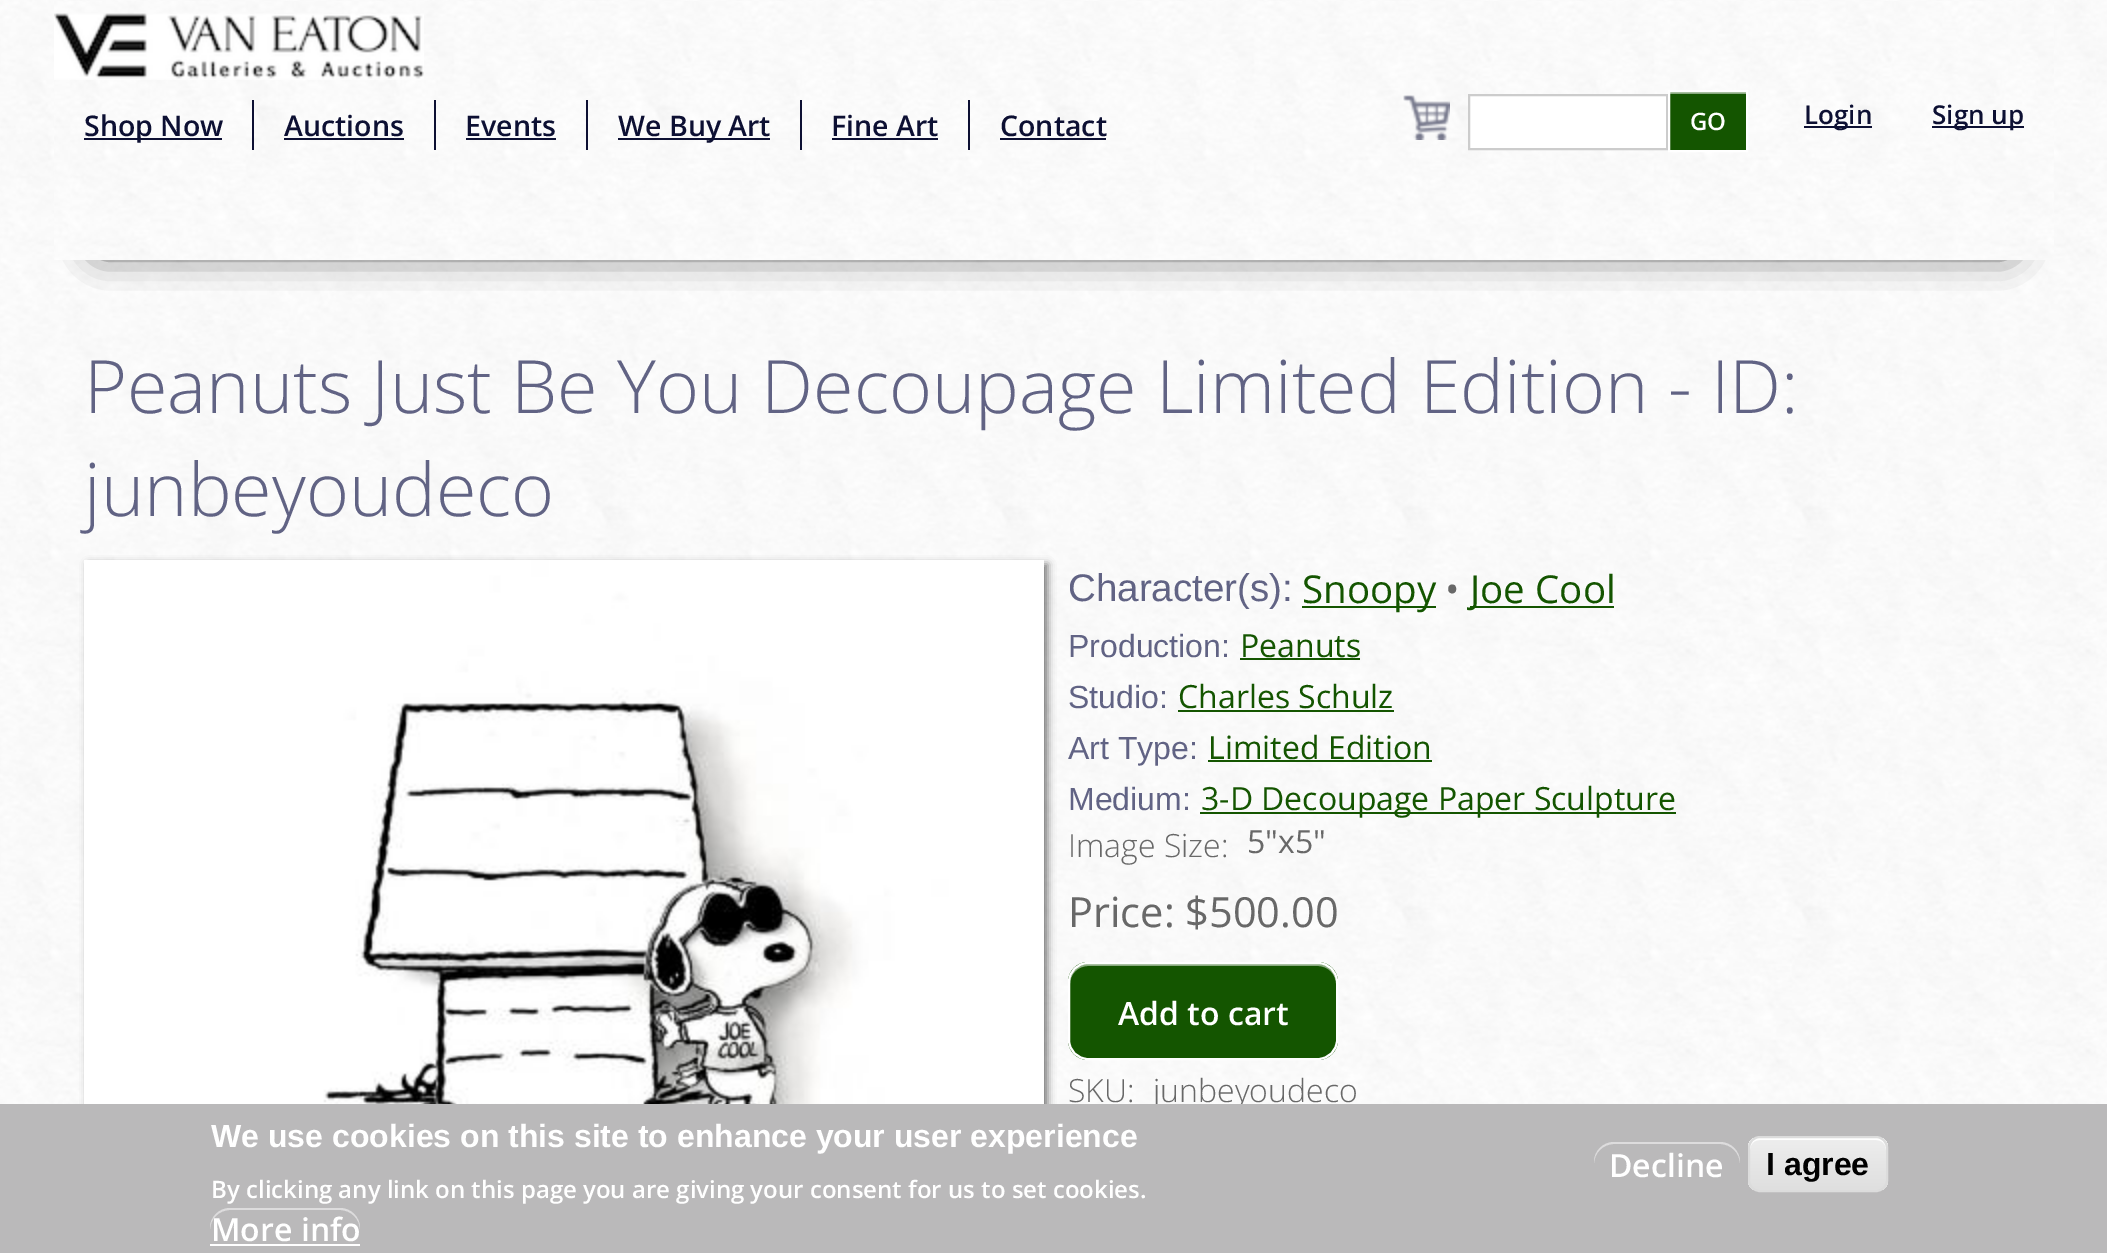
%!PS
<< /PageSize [2107 1253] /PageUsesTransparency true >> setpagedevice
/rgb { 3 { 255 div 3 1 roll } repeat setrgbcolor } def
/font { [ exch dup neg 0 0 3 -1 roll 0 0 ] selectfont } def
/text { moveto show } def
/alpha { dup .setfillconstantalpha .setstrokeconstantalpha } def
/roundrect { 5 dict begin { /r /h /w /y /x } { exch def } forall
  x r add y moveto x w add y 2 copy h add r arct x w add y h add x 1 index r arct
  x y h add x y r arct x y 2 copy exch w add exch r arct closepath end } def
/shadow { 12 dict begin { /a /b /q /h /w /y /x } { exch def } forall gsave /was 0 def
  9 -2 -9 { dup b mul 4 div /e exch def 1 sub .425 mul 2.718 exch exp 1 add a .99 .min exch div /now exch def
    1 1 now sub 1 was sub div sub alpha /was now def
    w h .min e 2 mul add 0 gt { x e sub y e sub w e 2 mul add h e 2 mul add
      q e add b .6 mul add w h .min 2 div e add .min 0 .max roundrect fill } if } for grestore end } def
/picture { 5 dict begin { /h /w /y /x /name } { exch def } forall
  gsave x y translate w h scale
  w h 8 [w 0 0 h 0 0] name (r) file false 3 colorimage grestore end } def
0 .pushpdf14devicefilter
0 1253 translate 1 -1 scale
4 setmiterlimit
255 255 255 rgb
0 0 2107 1253 rectfill
(img_01.rgb) 0 0 2107 1104 picture
0 0 0 rgb
100 80 1908 168 0 19 1 shadow
(img_02.rgb) 54 1 2000 259 picture
(img_03.rgb) 54 13 370 67 picture
(img_04.rgb) 1403 95 47 45 picture
13 16 51 rgb
84 138 138 2 rectfill
252 100 2 50 rectfill
284 138 120 2 rectfill
434 100 2 50 rectfill
466 138 90 2 rectfill
586 100 2 50 rectfill
618 138 152 2 rectfill
800 100 2 50 rectfill
832 138 106 2 rectfill
968 100 2 50 rectfill
1000 138 106 2 rectfill
1804 126 68 2 rectfill
1932 126 92 2 rectfill
255 255 255 rgb
1469 95 moveto 198 0 rlineto 0 54 rlineto -198 0 rlineto closepath gsave fill grestore
204 204 204 rgb
2 setlinewidth
stroke
20 85 0 rgb
1670 94 76 56 rectfill
138 170 128 rgb
1670 92 76 2 rectfill
255 255 255 rgb
1669 91 78 60 rectstroke
0 0 0 rgb
88 564 960 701 0 4 0.5 shadow
(img_05.rgb) 84 560 960 544 picture
20 85 0 rgb
1302 606 134 2 rectfill
1470 606 144 2 rectfill
1240 658 120 2 rectfill
1178 710 216 2 rectfill
1208 760 224 2 rectfill
1200 812 476 2 rectfill
1068 962 270 98 20 roundrect fill
138 170 128 rgb
1088 966 moveto 230 0 rlineto 10 0 18 8 18 18 rcurveto 0 -2 rlineto 0 -10 -8 -18 -18 -18 rcurveto -230 0 rlineto -10 0 -18 8 -18 18 rcurveto 0 2 rlineto 0 -10 8 -18 18 -18 rcurveto closepath fill
255 255 255 rgb
1069 963 268 96 19 roundrect stroke
/OpenSans-SemiBold 28.5 font
13 16 51 rgb
(Shop Now) 84 136 text
(Auctions) 284 136 text
(Events) 465 136 text
(We Buy Art) 618 136 text
(Fine Art) 831 136 text
(Contact) 1000 136 text
/OpenSans-SemiBold 26 font
(Login) 1804 124 text
(Sign up) 1932 124 text
/OpenSans-SemiBold 24 font
255 255 255 rgb
(GO) 1690 130 text
/OpenSans-Light 73.6 font
97 99 132 rgb
(Peanuts Just Be You Decoupage Limited Edition - ID:) 84 413 text
(junbeyoudeco) 84 516 text
/LiberationSans-Regular 38.5 font
(Character\(s\):) 1068 601 text
/OpenSans-Regular 38.5 font
20 85 0 rgb
(Snoopy) 1302 603 text
104 104 104 rgb
(•) 1445 603 text
20 85 0 rgb
(Joe Cool) 1470 603 text
/LiberationSans-Regular 32 font
97 99 132 rgb
(Production:) 1068 657 text
/OpenSans-Regular 32 font
20 85 0 rgb
(Peanuts) 1240 657 text
/LiberationSans-Regular 32 font
97 99 132 rgb
(Studio:) 1068 708 text
/OpenSans-Regular 32 font
20 85 0 rgb
(Charles Schulz) 1178 708 text
/LiberationSans-Regular 32 font
97 99 132 rgb
(Art Type:) 1068 759 text
/OpenSans-Regular 32 font
20 85 0 rgb
(Limited Edition) 1208 759 text
/LiberationSans-Regular 32 font
97 99 132 rgb
(Medium:) 1068 810 text
/OpenSans-Regular 32 font
20 85 0 rgb
(3-D Decoupage Paper Sculpture) 1201 810 text
/OpenSans-Light 32 font
104 104 104 rgb
(Image Size:) 1068 857 text
/OpenSans-Regular 32 font
(5"x5") 1247 853 text
/OpenSans-Regular 41.5 font
(Price: $500.00) 1068 927 text
/OpenSans-SemiBold 32 font
255 255 255 rgb
(Add to cart) 1118 1025 text
/OpenSans-Light 32 font
104 104 104 rgb
(SKU:) 1068 1102 text
(junbeyoudeco) 1153 1102 text
186 185 186 rgb
0 1104 2107 149 rectfill
/LiberationSans-Bold 32 font
255 255 255 rgb
(We use cookies on this site to enhance your user experience) 211 1147 text
/OpenSans-SemiBold 24 font
(By clicking any link on this page you are giving your consent for us to set cookies.) 211 1198 text
221 220 221 rgb
230 1210 moveto 110 0 rlineto 11 0 20 9 20 20 rcurveto 0 -2 rlineto 0 -11 -9 -20 -20 -20 rcurveto -110 0 rlineto -11 0 -20 9 -20 20 rcurveto 0 2 rlineto 0 -11 9 -20 20 -20 rcurveto closepath fill
/OpenSans-SemiBold 32 font
255 255 255 rgb
(More info) 211 1241 text
210 1244 150 2 rectfill
221 220 221 rgb
1614 1144 moveto 106 0 rlineto 11 0 20 9 20 20 rcurveto 0 -2 rlineto 0 -11 -9 -20 -20 -20 rcurveto -106 0 rlineto -11 0 -20 9 -20 20 rcurveto 0 2 rlineto 0 -11 9 -20 20 -20 rcurveto closepath fill
255 255 255 rgb
(Decline) 1609 1177 text
gsave
1748 1136 140 56 12 roundrect clip newpath
gsave 1748 1138 moveto 140 0 rlineto 0 52 rlineto -140 0 rlineto closepath clip newpath
<< /ShadingType 2 /ColorSpace /DeviceRGB /Coords [1818 1138 1818 1190] /Extend [true true] /Function << /FunctionType 3 /Domain [0 1] /Functions [<< /FunctionType 2 /Domain [0 1] /C0 [0.929 0.929 0.929] /C1 [0.929 0.929 0.929] /N 1 >> << /FunctionType 2 /Domain [0 1] /C0 [0.929 0.929 0.929] /C1 [0.875 0.875 0.875] /N 1 >>] /Bounds [0.05] /Encode [0 1 0 1] >> >> shfill grestore
grestore
1760 1140 moveto 116 0 rlineto 6 0 10 4 10 10 rcurveto 0 -17 -17 -12 -29 -12 rcurveto -78 0 rlineto -12 0 -29 -5 -29 12 rcurveto 0 -6 4 -10 10 -10 rcurveto closepath fill
220 220 220 rgb
1749 1137 138 54 11 roundrect stroke
/LiberationSans-Bold 32 font
0 0 0 rgb
(I agree) 1766 1175 text
.poppdf14devicefilter showpage
